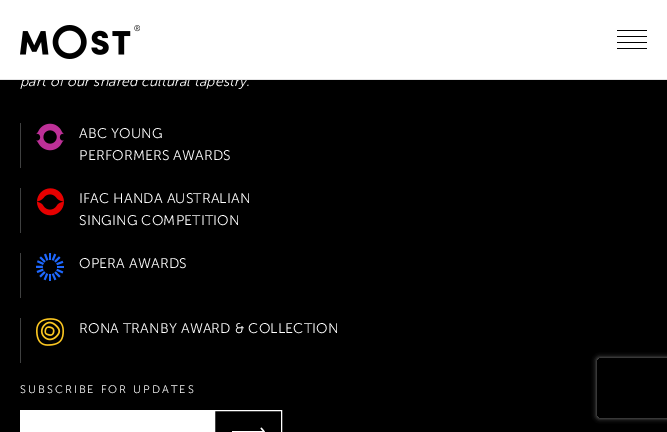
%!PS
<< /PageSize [667 432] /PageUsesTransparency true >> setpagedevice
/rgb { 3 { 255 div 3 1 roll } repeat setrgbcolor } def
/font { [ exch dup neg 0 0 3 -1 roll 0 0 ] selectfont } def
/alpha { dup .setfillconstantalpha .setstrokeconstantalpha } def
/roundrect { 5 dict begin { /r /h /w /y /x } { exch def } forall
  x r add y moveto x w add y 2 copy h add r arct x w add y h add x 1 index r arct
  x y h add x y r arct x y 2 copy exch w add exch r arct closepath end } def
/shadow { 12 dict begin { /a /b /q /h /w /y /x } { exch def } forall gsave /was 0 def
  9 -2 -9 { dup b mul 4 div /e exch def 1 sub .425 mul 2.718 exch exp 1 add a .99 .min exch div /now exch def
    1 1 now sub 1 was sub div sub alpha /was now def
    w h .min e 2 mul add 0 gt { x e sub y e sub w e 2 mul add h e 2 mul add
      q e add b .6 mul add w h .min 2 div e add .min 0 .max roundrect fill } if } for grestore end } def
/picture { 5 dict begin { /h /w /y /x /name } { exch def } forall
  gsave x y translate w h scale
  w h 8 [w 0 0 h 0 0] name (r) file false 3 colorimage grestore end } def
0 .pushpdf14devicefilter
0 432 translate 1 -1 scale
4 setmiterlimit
0 0 0 rgb
0 0 667 432 rectfill
255 255 255 rgb
0 0 667 79 rectfill
(img_01.rgb) 20 25 120 34 picture
0 0 0 rgb
617 30 30 1 rectfill
617 36 30 1 rectfill
617 42 30 1 rectfill
617 48 30 1 rectfill
63 64 64 rgb
20 123 1 45 rectfill
(img_02.rgb) 36 123 28 28 picture
20 188 1 45 rectfill
(img_03.rgb) 36 188 28 28 picture
20 253 1 45 rectfill
(img_04.rgb) 36 253 28 28 picture
20 318 1 45 rectfill
(img_05.rgb) 36 318 28 28 picture
255 255 255 rgb
20 410 194 22 rectfill
214.5 410.5 67 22 rectstroke
232 431 32 1 rectfill
1.3 setlinewidth
261 428 moveto 3 3.5 rlineto -3 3.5 rlineto stroke
gsave
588 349 moveto 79 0 rlineto 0 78 rlineto -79 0 rlineto closepath 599 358 moveto 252 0 rlineto 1 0 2 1 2 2 rcurveto 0 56 rlineto 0 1 -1 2 -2 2 rcurveto -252 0 rlineto -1 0 -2 -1 -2 -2 rcurveto 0 -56 rlineto 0 -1 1 -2 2 -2 rcurveto closepath eoclip newpath
128 128 128 rgb
597 358 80 60 2 2.5 1 shadow
grestore
/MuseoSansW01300-LightItalic 14 font
20 86 moveto 0.15 0 (part of our shared cultural tapestry.) ashow
228 228 229 rgb
0 79 667 1 rectfill
/MuseoSansW01300-Light 14 font
255 255 255 rgb
79 138 moveto 0.15 0 (ABC YOUNG) ashow
79 160 moveto 0.15 0 (PERFORMERS AWARDS) ashow
79 203 moveto 0.15 0 (IFAC HANDA AUSTRALIAN) ashow
79 225 moveto 0.15 0 (SINGING COMPETITION) ashow
79 268 moveto 0.15 0 (OPERA AWARDS) ashow
79 333 moveto 0.15 0 (RONA TRANBY AWARD & COLLECTION) ashow
/MuseoSansW01300-Light 11 font
20 393 moveto 2 0 (SUBSCRIBE FOR UPDATES) ashow
.poppdf14devicefilter showpage
